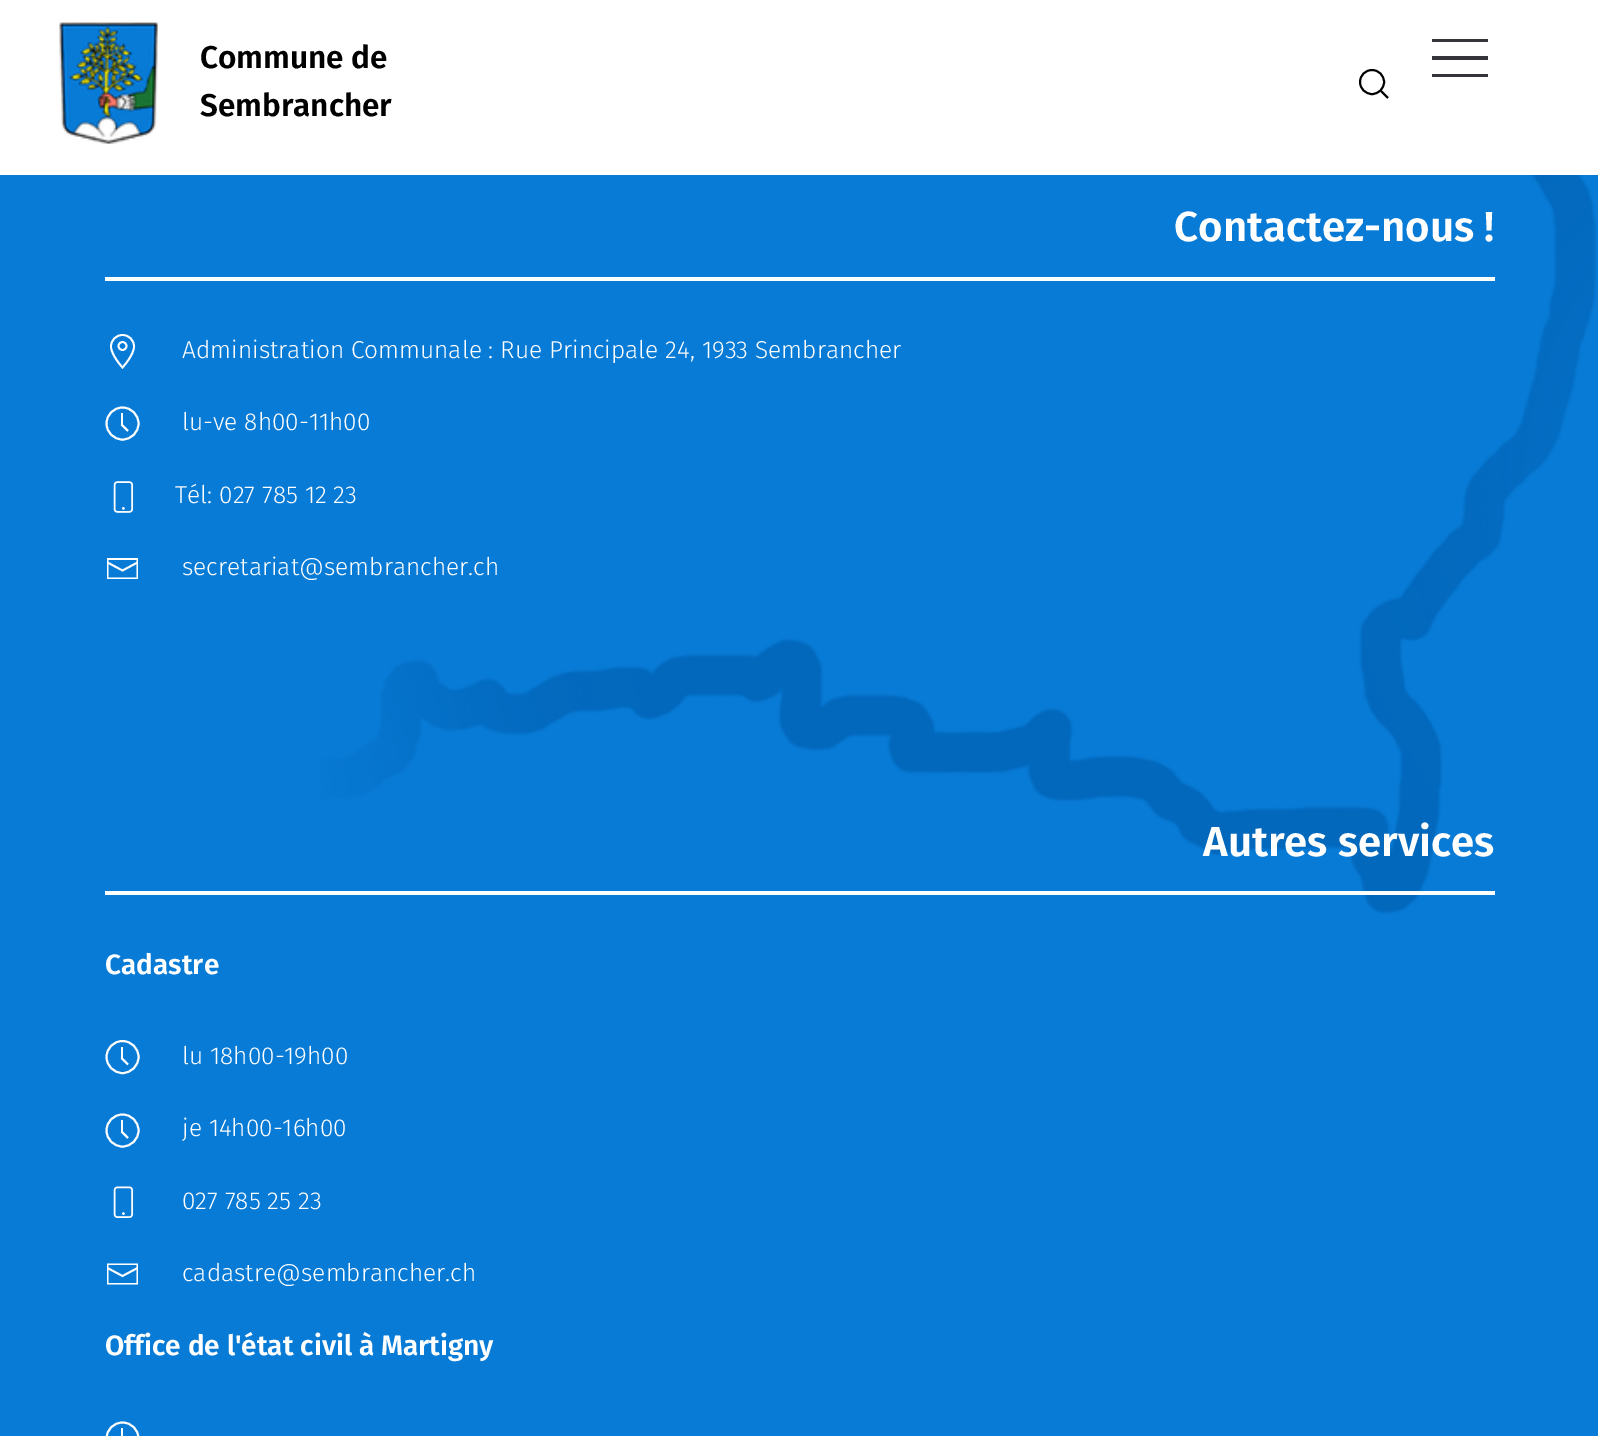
%!PS
<< /PageSize [1598 1436] >> setpagedevice
/rgb { 3 { 255 div 3 1 roll } repeat setrgbcolor } def
/font { [ exch dup neg 0 0 3 -1 roll 0 0 ] selectfont } def
/text { moveto show } def
/circle { newpath 0 360 arc closepath } def
/picture { 5 dict begin { /h /w /y /x /name } { exch def } forall
  gsave x y translate w h scale
  w h 8 [w 0 0 h 0 0] name (r) file false 3 colorimage grestore end } def
0 1436 translate 1 -1 scale
4 setmiterlimit
8 123 214 rgb
0 0 1598 1436 rectfill
255 255 255 rgb
0 0 1598 175 rectfill
(img_01.rgb) 59 22 99 122 picture
53 52 58 rgb
1432 39 56 3 rectfill
1432 56 56 4 rectfill
1432 74 56 3 rectfill
0 0 0 rgb
1.9 setlinewidth
1372 82 12 circle stroke
1381 91 moveto 7 7 rlineto closepath stroke
(img_02.rgb) 320 175 1277 739 picture
255 255 255 rgb
105 277 1390 4 rectfill
1.8 setlinewidth
122.5 335 moveto -6.5 0 -11.5 5 -11.5 11.5 rcurveto 0 8.5 11.5 21 11.5 21 rcurveto 0 0 11.5 -12.5 11.5 -21 rcurveto 0 -6.5 -5 -11.5 -11.5 -11.5 rcurveto closepath stroke
122.5 346 4 circle stroke
1.9 setlinewidth
122.5 423.5 16 circle stroke
121 413 2 12 rectfill
128 431 moveto -6.5 -6.5 rlineto stroke
(img_03.rgb) 113 481 21 32 picture
1.8 setlinewidth
107.5 562.5 moveto 15 8 rlineto 15 -8 rlineto stroke
107 558 moveto 0 21 rlineto 31 0 rlineto 0 -21 rlineto closepath 136.5 577.5 moveto -28 0 rlineto 0 -17.5 rlineto 28 0 rlineto closepath fill
105 891 1390 4 rectfill
1.9 setlinewidth
122.5 1057 16 circle stroke
121 1047 2 12 rectfill
128 1064.5 moveto -6.5 -6.5 rlineto stroke
122.5 1130.5 16 circle stroke
121 1120 2 12 rectfill
128 1138 moveto -6.5 -6.5 rlineto stroke
(img_04.rgb) 113 1186 21 32 picture
1.8 setlinewidth
107.5 1268 moveto 15 8 rlineto 15 -8 rlineto stroke
107 1263.5 moveto 0 21 rlineto 31 0 rlineto 0 -21 rlineto closepath 136.5 1283 moveto -28 0 rlineto 0 -18 rlineto 28 0 rlineto closepath fill
1.9 setlinewidth
122.5 1438.5 16 circle stroke
121 1428 2 8 rectfill
/FiraSans-SemiBold 31.5 font
0 0 0 rgb
(Commune de) 200 68 text
(Sembrancher) 200 116 text
/FiraSans-SemiBold 42 font
255 255 255 rgb
(Contactez-nous !) 1174 241 text
/FiraSans-Light 24.5 font
(Administration Communale : Rue Principale 24, 1933 Sembrancher) 182 358 text
(lu-ve 8h00-11h00) 182 430 text
(Tél: 027 785 12 23) 175 503 text
(secretariat@sembrancher.ch) 182 575 text
/FiraSans-SemiBold 42 font
(Autres services) 1203 856 text
/FiraSans-SemiBold 28 font
(Cadastre) 105 974 text
/FiraSans-Light 24.5 font
(lu 18h00-19h00) 182 1064 text
(je 14h00-16h00) 182 1136 text
(027 785 25 23) 182 1209 text
(cadastre@sembrancher.ch) 182 1281 text
/FiraSans-SemiBold 28 font
(Office de l'état civil à Martigny) 105 1355 text
showpage
